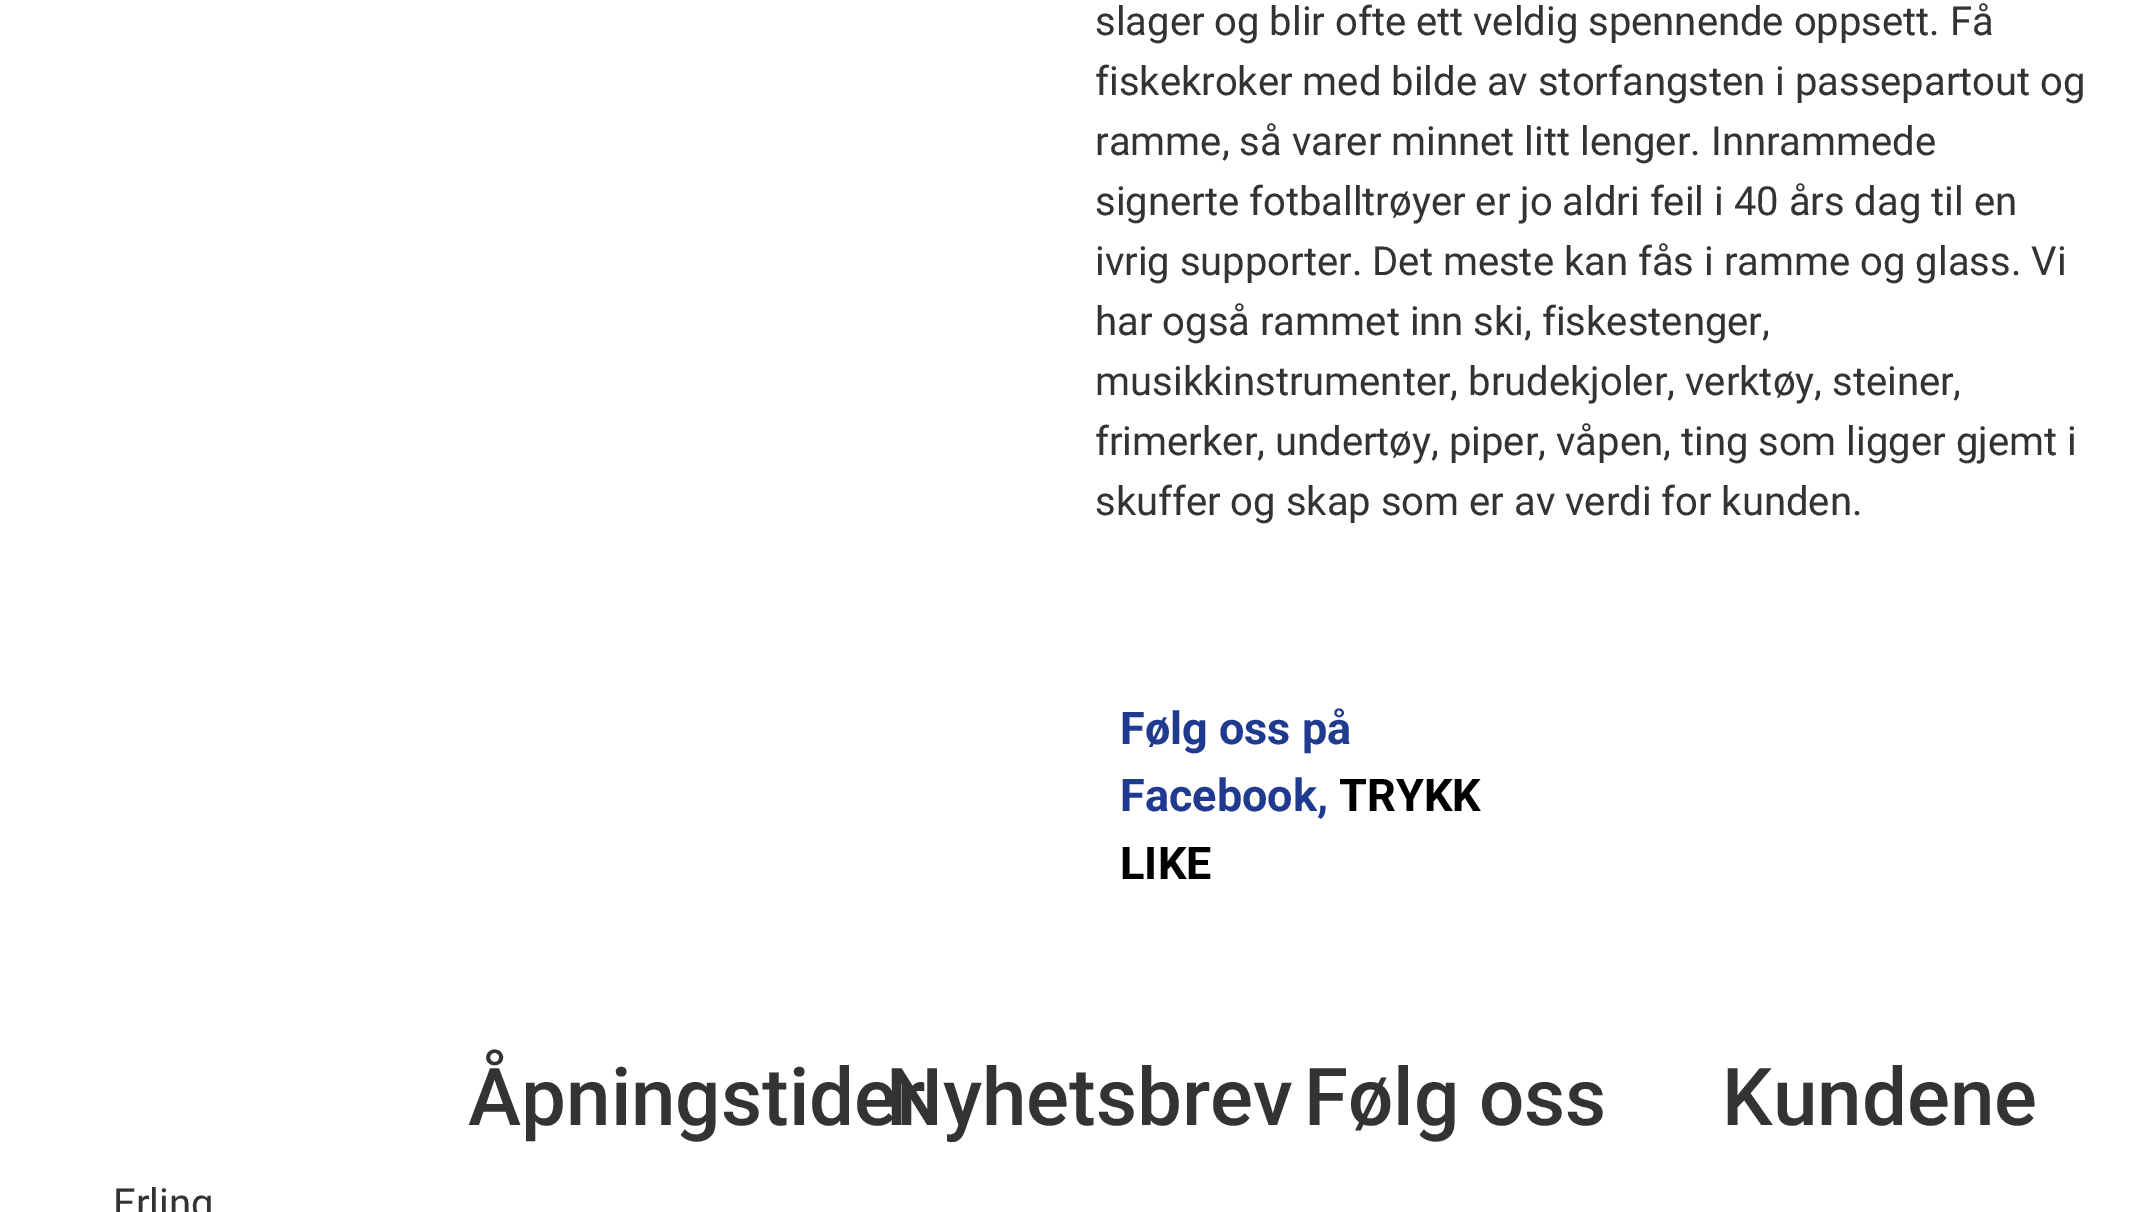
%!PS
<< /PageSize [2139 1212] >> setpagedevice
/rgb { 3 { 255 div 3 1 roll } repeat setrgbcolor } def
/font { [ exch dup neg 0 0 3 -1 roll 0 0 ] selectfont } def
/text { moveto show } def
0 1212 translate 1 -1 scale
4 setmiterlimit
255 255 255 rgb
0 0 2139 1212 rectfill
/Roboto-Regular 40 font
51 51 51 rgb
(slager og blir ofte ett veldig spennende oppsett. Få) 1095 35 text
(fiskekroker med bilde av storfangsten i passepartout og) 1095 95 text
(ramme, så varer minnet litt lenger. Innrammede) 1095 155 text
(signerte fotballtrøyer er jo aldri feil i 40 års dag til en) 1095 215 text
(ivrig supporter. Det meste kan fås i ramme og glass. Vi) 1095 275 text
(har også rammet inn ski, fiskestenger,) 1095 335 text
(musikkinstrumenter, brudekjoler, verktøy, steiner,) 1095 395 text
(frimerker, undertøy, piper, våpen, ting som ligger gjemt i) 1095 455 text
(skuffer og skap som er av verdi for kunden.) 1095 515 text
/Roboto-Bold 45 font
32 58 144 rgb
(Følg oss på) 1120 744 text
(Facebook,) 1120 811 text
0 0 0 rgb
(TRYKK) 1339 811 text
(LIKE) 1120 879 text
/Roboto-Medium 80 font
51 51 51 rgb
(Åpningstider) 468 1125 text
(Nyhetsbrev) 886 1125 text
(Følg oss) 1304 1125 text
(Kundene) 1722 1125 text
/Roboto-Regular 40 font
(Erling) 113 1217 text
showpage
